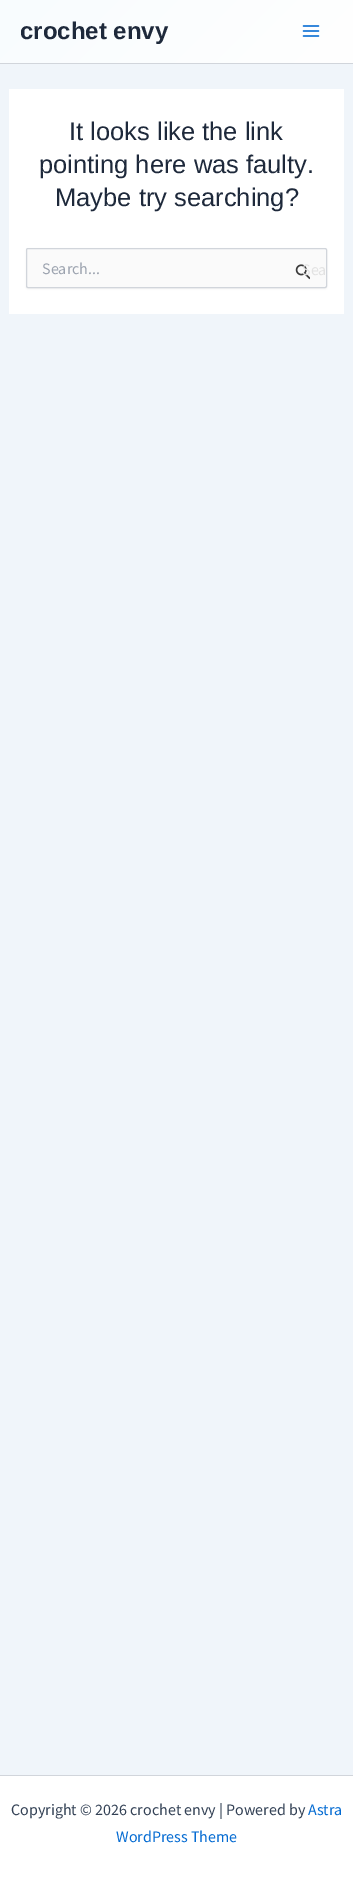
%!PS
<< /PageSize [353 1879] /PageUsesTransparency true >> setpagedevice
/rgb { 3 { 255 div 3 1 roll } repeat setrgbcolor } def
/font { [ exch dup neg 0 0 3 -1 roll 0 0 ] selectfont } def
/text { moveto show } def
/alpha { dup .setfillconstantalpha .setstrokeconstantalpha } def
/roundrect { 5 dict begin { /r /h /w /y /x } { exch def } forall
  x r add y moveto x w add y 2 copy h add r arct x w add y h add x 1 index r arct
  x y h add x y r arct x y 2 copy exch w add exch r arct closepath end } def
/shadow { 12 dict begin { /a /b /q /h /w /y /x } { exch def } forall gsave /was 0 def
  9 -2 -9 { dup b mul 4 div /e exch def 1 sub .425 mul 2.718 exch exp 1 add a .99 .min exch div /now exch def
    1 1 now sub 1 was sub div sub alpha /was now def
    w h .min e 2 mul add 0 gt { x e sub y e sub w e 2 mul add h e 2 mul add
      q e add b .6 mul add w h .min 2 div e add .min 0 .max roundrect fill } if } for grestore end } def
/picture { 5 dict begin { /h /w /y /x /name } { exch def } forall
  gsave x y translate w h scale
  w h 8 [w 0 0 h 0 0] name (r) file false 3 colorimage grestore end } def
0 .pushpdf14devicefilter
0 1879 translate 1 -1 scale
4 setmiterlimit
240 245 250 rgb
0 0 353 1879 rectfill
gsave 0 0 moveto 353 0 rlineto 0 63 rlineto -353 0 rlineto closepath clip newpath
<< /ShadingType 2 /ColorSpace /DeviceRGB /Coords [72 -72 281 136] /Extend [true true] /Function << /FunctionType 2 /Domain [0 1] /C0 [0.973 0.988 0.996] /C1 [1 1 1] /N 1 >> >> shfill grestore
209 213 219 rgb
0 63 353 1 rectfill
(img_01.rgb) 302 25 18 12 picture
255 255 255 rgb
9 89 335 225 rectfill
0 0 0 rgb
26 249 301 40 2 1 0.05 shadow
250 250 250 rgb
26.5 248.5 300 39 1.5 roundrect gsave fill grestore
209 213 219 rgb
stroke
(img_02.rgb) 295 264 15 16 picture
255 255 255 rgb
0 1776 353 103 rectfill
209 213 219 rgb
0 1775 353 1 rectfill
/LiberationSans-Bold 24 font
30 41 59 rgb
(crochet envy) 20 39 text
/LiberationSans-Regular 25.5 font
(It looks like the link) 69 140 text
(pointing here was faulty.) 39 173 text
(Maybe try searching?) 55 206 text
/SourceSansPro-Regular 16 font
156 163 175 rgb
(Search...) 42 274 text
226 226 226 rgb
(Sea) 302 275 text
51 65 85 rgb
(Copyright © 2026 crochet envy | Powered by) 11 1815 text
4 107 210 rgb
(Astra) 308 1815 text
(WordPress Theme) 116 1842 text
.poppdf14devicefilter showpage
